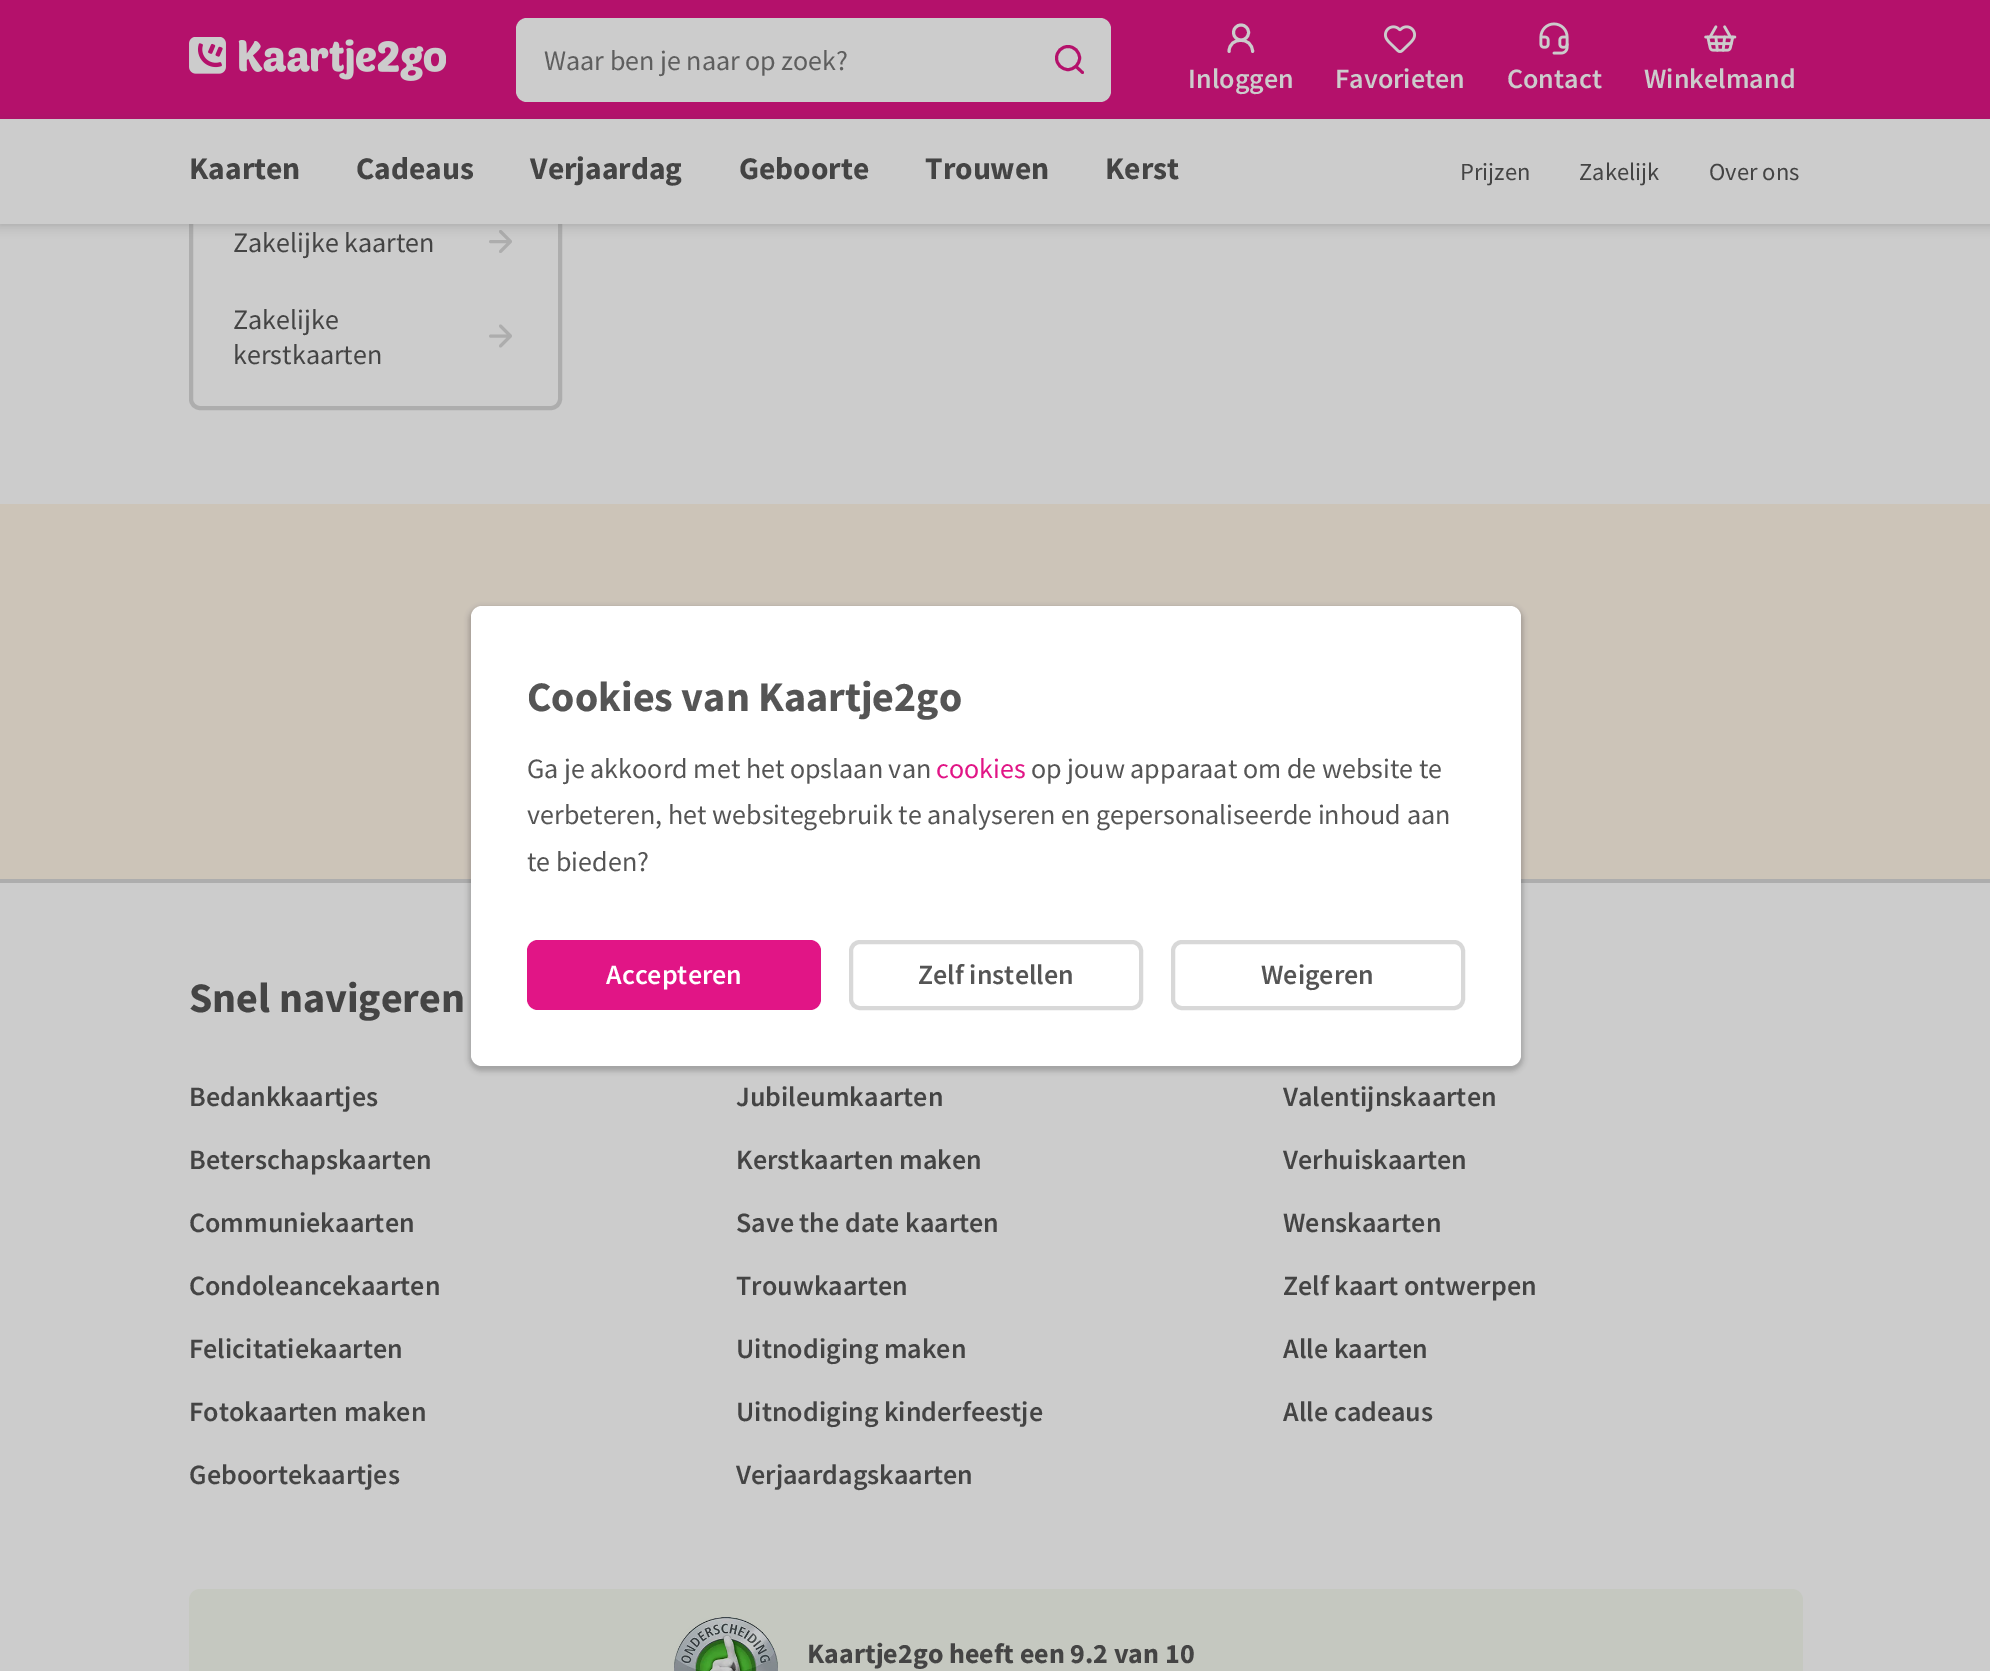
%!PS
<< /PageSize [1990 1671] /PageUsesTransparency true >> setpagedevice
/rgb { 3 { 255 div 3 1 roll } repeat setrgbcolor } def
/font { [ exch dup neg 0 0 3 -1 roll 0 0 ] selectfont } def
/text { moveto show } def
/alpha { dup .setfillconstantalpha .setstrokeconstantalpha } def
/circle { newpath 0 360 arc closepath } def
/roundrect { 5 dict begin { /r /h /w /y /x } { exch def } forall
  x r add y moveto x w add y 2 copy h add r arct x w add y h add x 1 index r arct
  x y h add x y r arct x y 2 copy exch w add exch r arct closepath end } def
/shadow { 12 dict begin { /a /b /q /h /w /y /x } { exch def } forall gsave /was 0 def
  9 -2 -9 { dup b mul 4 div /e exch def 1 sub .425 mul 2.718 exch exp 1 add a .99 .min exch div /now exch def
    1 1 now sub 1 was sub div sub alpha /was now def
    w h .min e 2 mul add 0 gt { x e sub y e sub w e 2 mul add h e 2 mul add
      q e add b .6 mul add w h .min 2 div e add .min 0 .max roundrect fill } if } for grestore end } def
/picture { 5 dict begin { /h /w /y /x /name } { exch def } forall
  gsave x y translate w h scale
  w h 8 [w 0 0 h 0 0] name (r) file false 3 colorimage grestore end } def
0 .pushpdf14devicefilter
0 1671 translate 1 -1 scale
4 setmiterlimit
204 204 204 rgb
0 0 1990 1671 rectfill
173 173 173 rgb
4 setlinewidth
191 -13 369 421 9 roundrect stroke
180 17 107 rgb
0 0 1990 119 rectfill
(img_01.rgb) 189 37 257 44 picture
173 173 173 rgb
2.9 setlinewidth
1 setlinecap
1 setlinejoin
490.5 241.5 moveto 20 0 rlineto 500.5 231.5 moveto 10 10 rlineto -10 10 rlineto stroke
79 79 79 rgb
-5 117 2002 116 0 5 0.1 shadow
204 204 204 rgb
516 18 595 84 11 roundrect fill
180 17 107 rgb
1082.5 72.5 moveto -6.5 -6 rlineto stroke
0 setlinecap
0 setlinejoin
1068 58 11.5 circle stroke
204 204 204 rgb
1241 32.5 7.5 circle stroke
1 setlinecap
1 setlinejoin
1252.5 51.5 moveto 0 -15 -23.5 -15 -23.5 0 rcurveto stroke
(img_02.rgb) 1384 25 32 28 picture
(img_03.rgb) 1539 22 30 33 picture
(img_04.rgb) 1704 25 33 27 picture
53 53 53 rgb
0 121 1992 105 0 2 0.1 shadow
204 204 204 rgb
0 119 1990 105 rectfill
173 173 173 rgb
490.5 336 moveto 20 0 rlineto 500.5 326 moveto 10 10 rlineto -10 10 rlineto stroke
204 196 184 rgb
0 504 1990 375 rectfill
173 173 173 rgb
0 879 1990 4 rectfill
197 200 192 rgb
189 1589 1614 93 11 roundrect fill
(img_05.rgb) 674 1617 104 54 picture
0 0 0 rgb
469 607 1054 464 12 2.5 0.2 shadow
255 255 255 rgb
471 606 1050 460 11 roundrect fill
225 21 134 rgb
527 940 294 70 11 roundrect fill
216 216 216 rgb
4 setlinewidth
0 setlinecap
0 setlinejoin
851 942 290 66 9 roundrect stroke
1173 942 290 66 9 roundrect stroke
/SourceSansPro-Regular 28 font
94 94 94 rgb
(Waar ben je naar op zoek?) 544 70 text
/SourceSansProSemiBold-SemiBold 28 font
204 204 204 rgb
(Inloggen) 1188 88 text
(Favorieten) 1335 88 text
(Contact) 1507 88 text
(Winkelmand) 1644 88 text
/SourceSansPro-Bold 31.5 font
68 68 68 rgb
(Kaarten) 189 179 text
(Cadeaus) 356 179 text
(Verjaardag) 530 179 text
(Geboorte) 739 179 text
(Trouwen) 925 179 text
(Kerst) 1105 179 text
/SourceSansPro-Regular 24.5 font
(Prijzen) 1460 180 text
(Zakelijk) 1579 180 text
(Over ons) 1709 180 text
/SourceSansPro-Regular 28 font
(Zakelijke kaarten) 233 252 text
(Zakelijke) 233 329 text
(kerstkaarten) 233 364 text
/SourceSansPro-Bold 42 font
(Snel navigeren) 189 1012 text
/SourceSansProSemiBold-SemiBold 28 font
(Bedankkaartjes) 189 1106 text
(Jubileumkaarten) 736 1106 text
(Valentijnskaarten) 1283 1106 text
(Beterschapskaarten) 189 1169 text
(Kerstkaarten maken) 736 1169 text
(Verhuiskaarten) 1283 1169 text
(Communiekaarten) 189 1232 text
(Save the date kaarten) 736 1232 text
(Wenskaarten) 1283 1232 text
(Condoleancekaarten) 189 1295 text
(Trouwkaarten) 736 1295 text
(Zelf kaart ontwerpen) 1283 1295 text
(Felicitatiekaarten) 189 1358 text
(Uitnodiging maken) 736 1358 text
(Alle kaarten) 1283 1358 text
(Fotokaarten maken) 189 1421 text
(Uitnodiging kinderfeestje) 736 1421 text
(Alle cadeaus) 1283 1421 text
(Geboortekaartjes) 189 1484 text
(Verjaardagskaarten) 736 1484 text
/SourceSansPro-Bold 28 font
(Kaartje2go heeft een 9.2 van 10) 807 1663 text
/SourceSansPro-Bold 42 font
85 85 85 rgb
(Cookies van Kaartje2go) 527 711 text
/SourceSansPro-Regular 28 font
(Ga je akkoord met het opslaan van) 527 778 text
225 21 134 rgb
(cookies) 936 778 text
85 85 85 rgb
(op jouw apparaat om de website te) 1031 778 text
(verbeteren, het websitegebruik te analyseren en gepersonaliseerde inhoud aan) 527 824 text
(te bieden?) 527 871 text
/SourceSansProSemiBold-SemiBold 28 font
255 255 255 rgb
(Accepteren) 606 984 text
85 85 85 rgb
(Zelf instellen) 918 984 text
(Weigeren) 1261 984 text
.poppdf14devicefilter showpage
